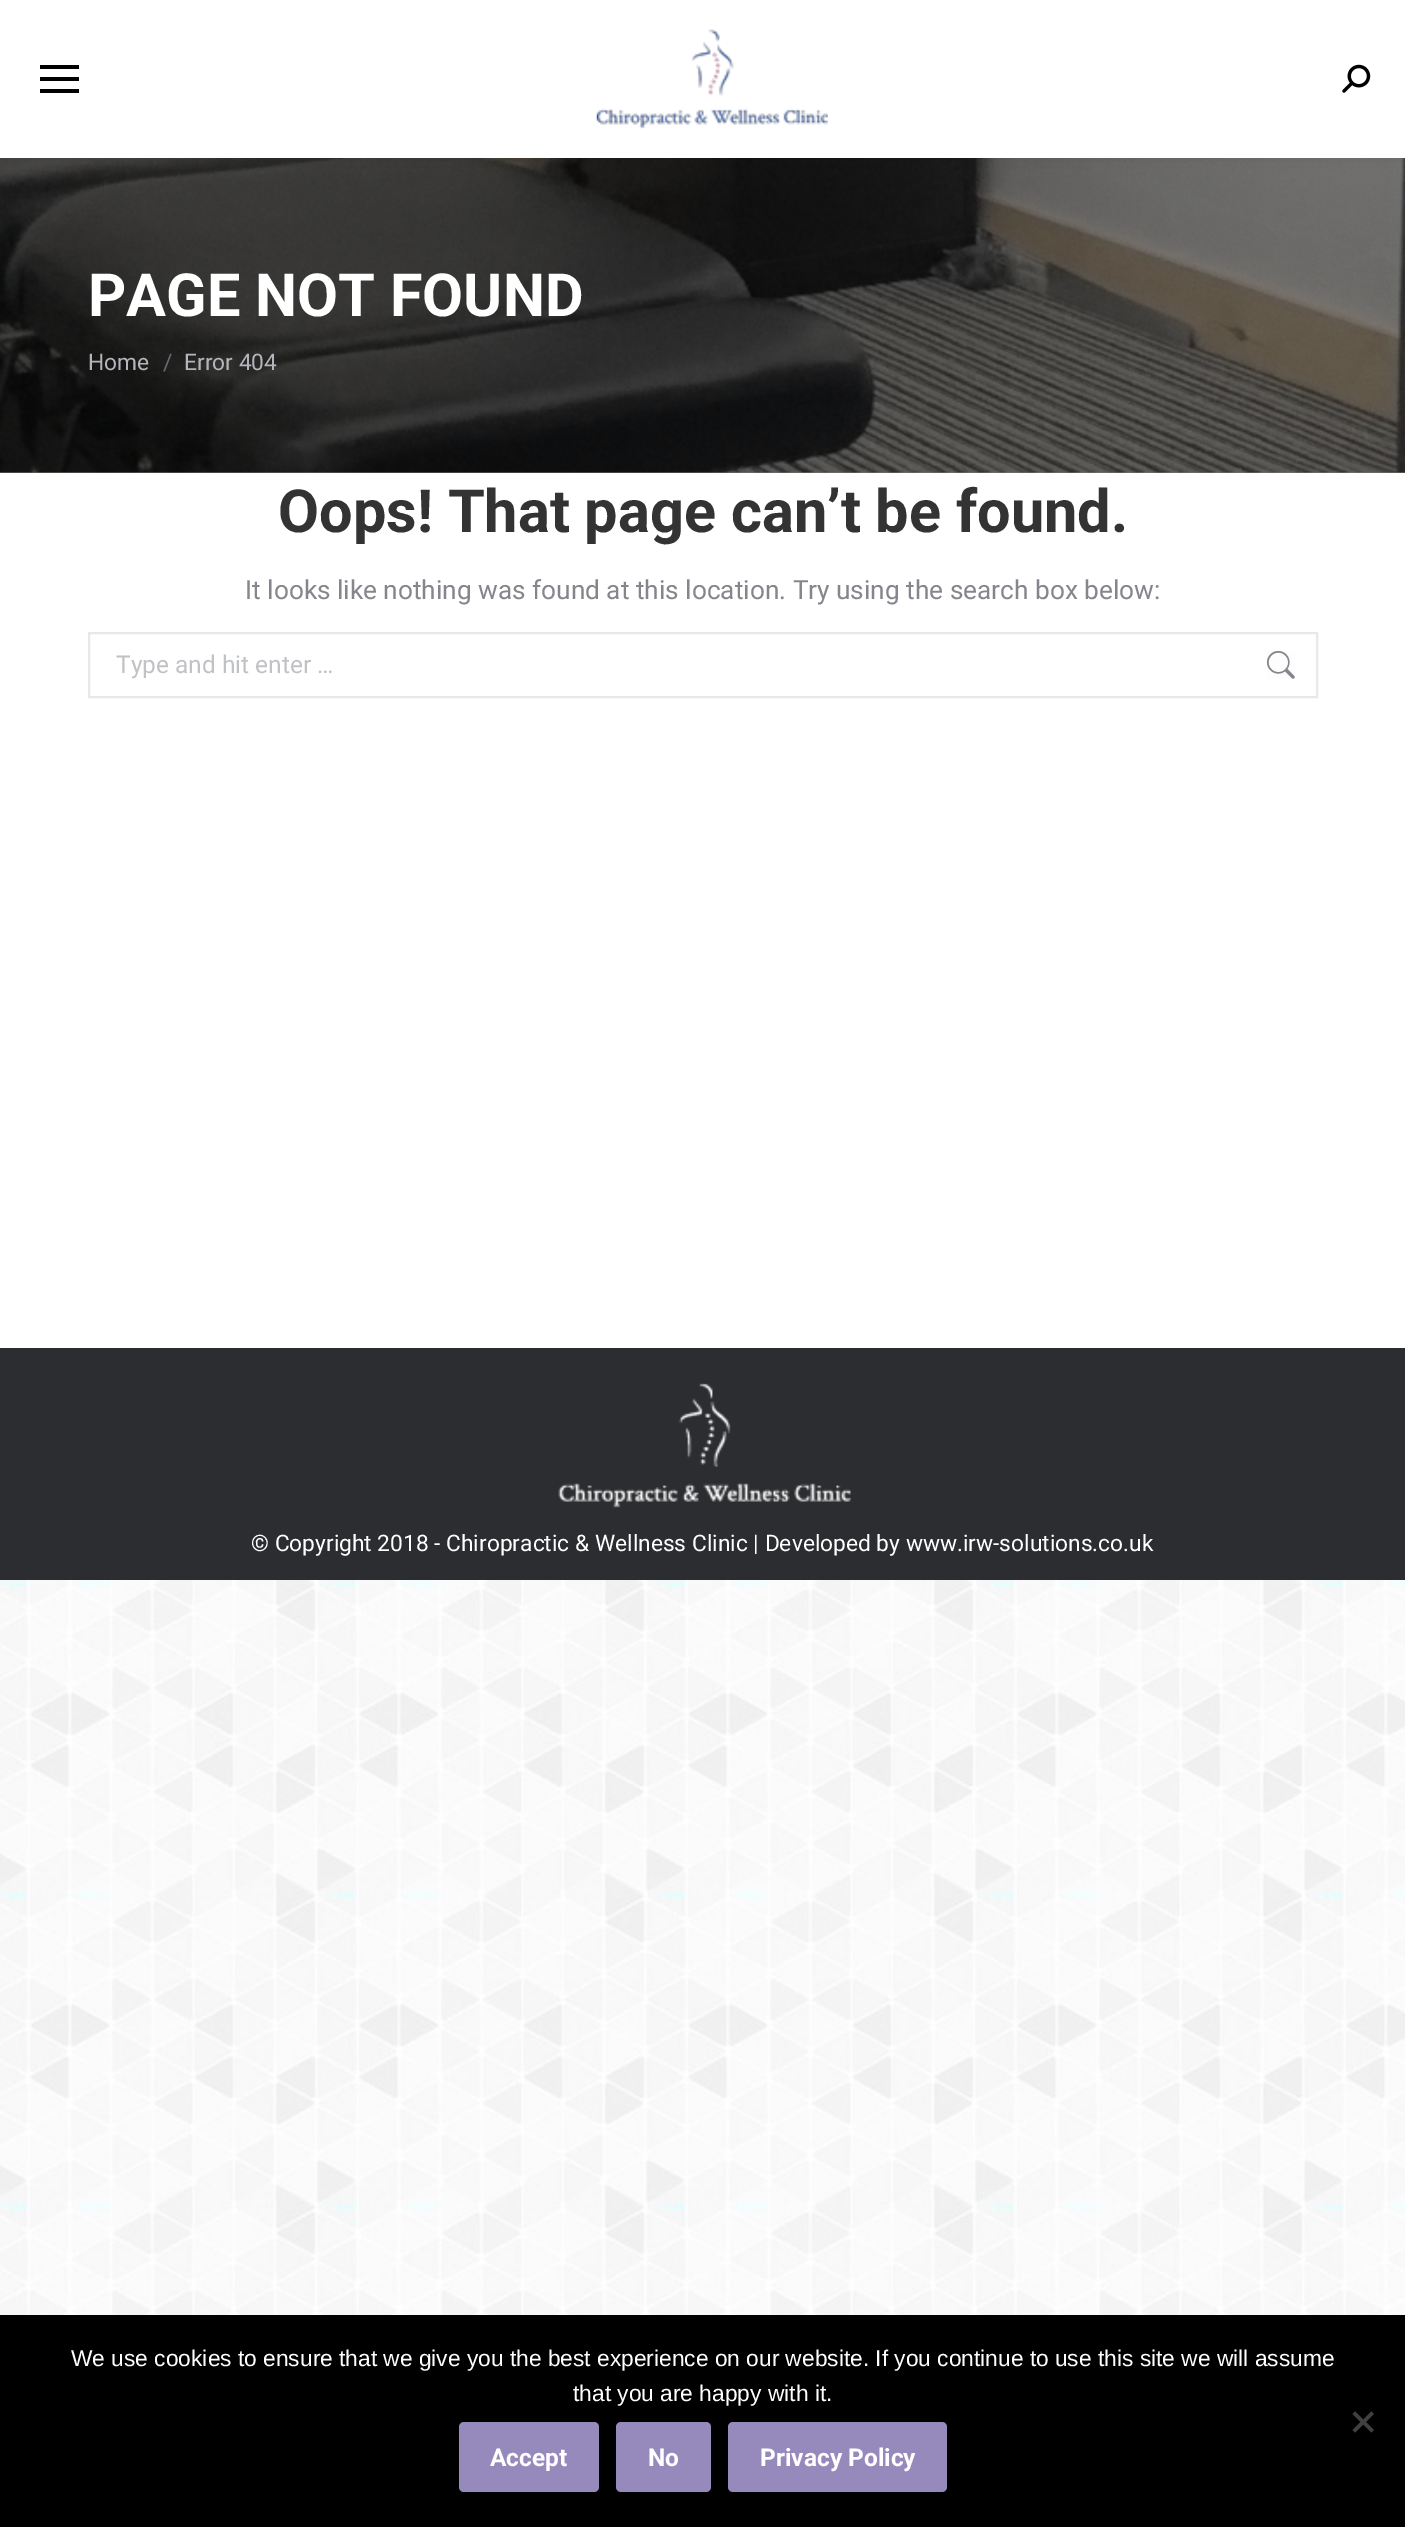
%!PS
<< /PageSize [1405 2527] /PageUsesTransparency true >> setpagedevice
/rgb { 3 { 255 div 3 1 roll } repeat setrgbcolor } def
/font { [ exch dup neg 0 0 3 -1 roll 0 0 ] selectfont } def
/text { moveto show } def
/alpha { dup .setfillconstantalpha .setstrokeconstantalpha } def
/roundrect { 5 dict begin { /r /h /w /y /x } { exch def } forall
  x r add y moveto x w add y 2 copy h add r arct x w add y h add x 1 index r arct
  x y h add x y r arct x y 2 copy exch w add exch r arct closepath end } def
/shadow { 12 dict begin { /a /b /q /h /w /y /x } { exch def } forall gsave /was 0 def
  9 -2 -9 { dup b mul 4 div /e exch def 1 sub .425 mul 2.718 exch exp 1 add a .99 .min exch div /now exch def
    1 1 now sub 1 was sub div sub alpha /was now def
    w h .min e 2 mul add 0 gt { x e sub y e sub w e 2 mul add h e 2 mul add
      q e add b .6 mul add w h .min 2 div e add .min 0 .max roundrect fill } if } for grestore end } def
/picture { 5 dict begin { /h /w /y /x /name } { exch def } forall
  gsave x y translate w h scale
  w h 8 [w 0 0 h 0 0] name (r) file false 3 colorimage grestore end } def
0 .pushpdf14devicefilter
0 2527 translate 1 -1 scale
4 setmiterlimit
255 255 255 rgb
0 0 1405 2527 rectfill
(img_01.rgb) 0 1580 1405 735 picture
247 247 247 rgb
0 472 1405 1 rectfill
(img_04.rgb) 0 158 1405 315 picture
0.5 alpha
0 0 0 rgb
0 158 1405 315 rectfill
1 alpha
-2 -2 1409 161 0 13 0.07 shadow
255 255 255 rgb
0 0 1405 158 rectfill
0 0 0 rgb
40 65 39 4 rectfill
40 77 39 4 rectfill
40 89 39 4 rectfill
(img_02.rgb) 596 29 232 100 picture
(img_03.rgb) 1342 64 29 29 picture
232 232 232 rgb
2 setlinewidth
89 633 1228 64 rectstroke
(img_05.rgb) 1267 651 28 28 picture
43 45 48 rgb
0 1348 1405 232 rectfill
(img_06.rgb) 558 1383 293 125 picture
0 0 0 rgb
0 2315 1405 212 rectfill
64 64 64 rgb
1371.5 2411.5 moveto 2.5 2.5 rlineto -19 18.5 rlineto -2.5 -2.5 rlineto closepath fill
1352.5 2414 moveto 2.5 -2.5 rlineto 19 18.5 rlineto -2.5 2.5 rlineto closepath fill
150 137 188 rgb
459 2422 140 70 5 roundrect fill
616 2422 95 70 5 roundrect fill
728 2422 219 70 5 roundrect fill
/Roboto-Bold 59.5 font
255 255 255 rgb
(PAGE NOT FOUND) 88 316 text
/Roboto-Regular 22.75 font
180 181 187 rgb
(Home) 88 370 text
105 106 108 rgb
(/) 163 370 text
180 181 187 rgb
(Error 404) 184 370 text
/Roboto-Bold 59.5 font
51 51 51 rgb
(Oops! That page can’t be found.) 278 532 text
/Roboto-Regular 26.25 font
133 134 140 rgb
(It looks like nothing was found at this location. Try using the search box below:) 245 599 text
/Roboto-Regular 24.5 font
193 194 197 rgb
(Type and hit enter …) 116 673 text
/Roboto-Regular 22.75 font
255 255 255 rgb
(© Copyright 2018 - Chiropractic & Wellness Clinic | Developed by www.irw-solutions.co.uk) 251 1551 text
/LiberationSans-Regular 22.75 font
(We use cookies to ensure that we give you the best experience on our website. If you continue to use this site we will assume) 71 2366 text
(that you are happy with it.) 573 2401 text
/Roboto-Bold 24.5 font
(Accept) 490 2466 text
(No) 648 2466 text
(Privacy Policy) 760 2466 text
.poppdf14devicefilter showpage
